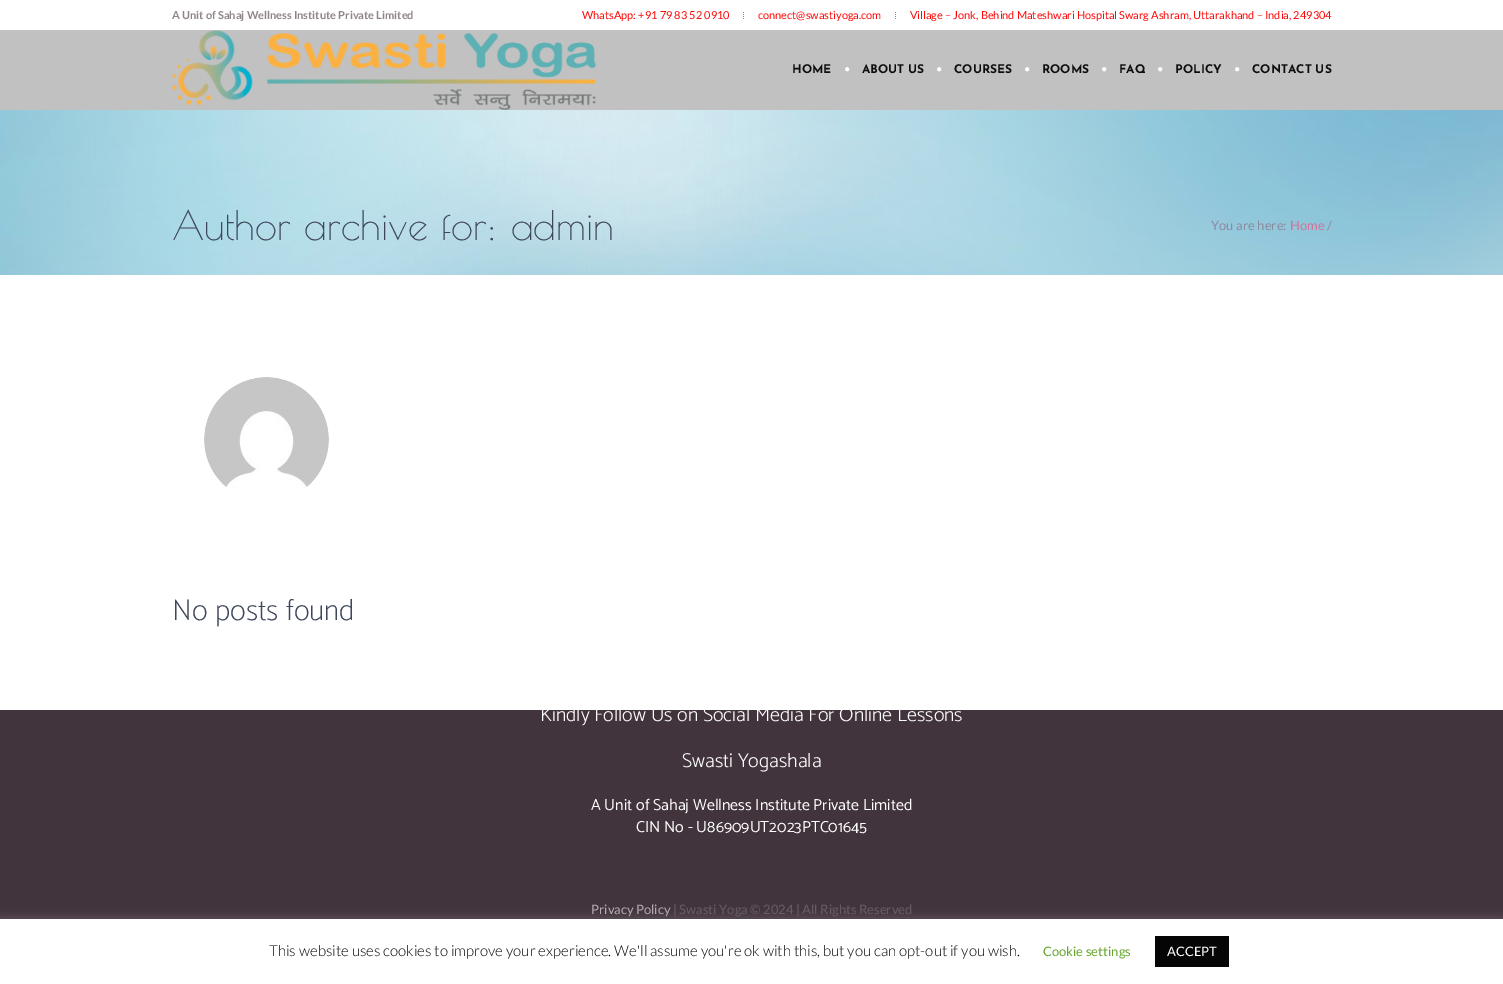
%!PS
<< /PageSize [1503 984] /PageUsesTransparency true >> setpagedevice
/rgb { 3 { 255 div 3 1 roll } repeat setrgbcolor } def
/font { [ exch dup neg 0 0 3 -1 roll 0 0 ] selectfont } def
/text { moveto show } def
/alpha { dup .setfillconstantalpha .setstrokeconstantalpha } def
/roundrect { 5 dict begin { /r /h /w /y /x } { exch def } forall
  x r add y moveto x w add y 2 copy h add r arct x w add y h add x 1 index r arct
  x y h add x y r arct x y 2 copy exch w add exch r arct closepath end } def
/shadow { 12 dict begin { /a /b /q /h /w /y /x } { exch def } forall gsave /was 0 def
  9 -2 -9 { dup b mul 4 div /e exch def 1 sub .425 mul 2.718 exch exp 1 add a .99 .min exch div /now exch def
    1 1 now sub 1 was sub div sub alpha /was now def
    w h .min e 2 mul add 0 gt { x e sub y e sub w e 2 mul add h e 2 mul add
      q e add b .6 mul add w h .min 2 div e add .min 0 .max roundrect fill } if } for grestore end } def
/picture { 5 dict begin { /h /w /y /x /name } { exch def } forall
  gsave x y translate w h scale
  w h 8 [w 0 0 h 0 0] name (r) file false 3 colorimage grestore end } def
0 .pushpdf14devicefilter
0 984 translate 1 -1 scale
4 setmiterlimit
66 52 61 rgb
0 0 1503 984 rectfill
255 255 255 rgb
0 0 1503 30 rectfill
142 133 139 rgb
743 12 1 1 rectfill
743 18 1 1 rectfill
743 14 1 1 rectfill
743 16 1 1 rectfill
895 12 1 1 rectfill
895 18 1 1 rectfill
895 14 1 1 rectfill
895 16 1 1 rectfill
193 193 193 rgb
0 30 1503 80 rectfill
(img_01.rgb) 172 30 425 80 picture
(img_02.rgb) 845 67 5 5 picture
(img_02.rgb) 937 67 5 5 picture
(img_02.rgb) 1025 67 5 5 picture
(img_02.rgb) 1102 67 5 5 picture
(img_02.rgb) 1158 67 5 5 picture
(img_02.rgb) 1235 67 5 5 picture
(img_03.rgb) 0 110 1503 165 picture
255 255 255 rgb
0 275 1503 435 rectfill
(img_04.rgb) 204 377 125 112 picture
173 172 172 rgb
0 918 1503 65 0 5 0.3 shadow
255 255 255 rgb
0 919 1503 65 rectfill
5 5 5 rgb
1155 936 74 31 rectfill
/Lato-Bold 11 font
142 133 139 rgb
(A Unit of Sahaj Wellness Institute Private Limited) 172 19 text
/Lato-Regular 11 font
255 7 7 rgb
(WhatsApp: +91 79 83 52 0910) 582 19 text
(connect@swastiyoga.com) 758 19 text
(Village – Jonk, Behind Mateshwari Hospital Swarg Ashram, Uttarakhand – India, 249304) 910 19 text
/JosefinSans-Bold 12 font
14 14 14 rgb
(HOME) 792 73 text
(ABOUT US) 862 73 text
(COURSES) 954 73 text
(ROOMS) 1042 73 text
(FAQ) 1119 73 text
(POLICY) 1175 73 text
(CONTACT US) 1252 73 text
/PoiretOne-Regular 40 font
62 70 92 rgb
(Author archive for: admin) 172 240 text
/Lato-Regular 13 font
137 140 156 rgb
(You are here:) 1211 230 text
206 117 155 rgb
(Home) 1290 230 text
137 140 156 rgb
(/) 1327 230 text
/Catamaran-Thin 30 font
62 70 92 rgb
(No posts found) 172 620 text
/Catamaran-Light 20 font
255 255 255 rgb
(Kindly Follow Us on Social Media For Online Lessons) 540 721 text
(Swasti Yogashala) 682 767 text
/Catamaran-Regular 16 font
(A Unit of Sahaj Wellness Institute Private Limited) 591 810 text
(CIN No - U86909UT2023PTC01645) 636 832 text
/Lato-Regular 13 font
179 173 177 rgb
(Privacy Policy) 591 914 text
104 92 100 rgb
(| Swasti Yoga © 2024 | All Rights Reserved) 673 914 text
/Lato-Light 15 font
5 5 5 rgb
(This website uses cookies to improve your experience. We'll assume you're ok with this, but you can opt-out if you wish.) 269 956 text
/Lato-Regular 13 font
101 165 45 rgb
(Cookie settings) 1043 956 text
255 255 255 rgb
(ACCEPT) 1167 956 text
.poppdf14devicefilter showpage
